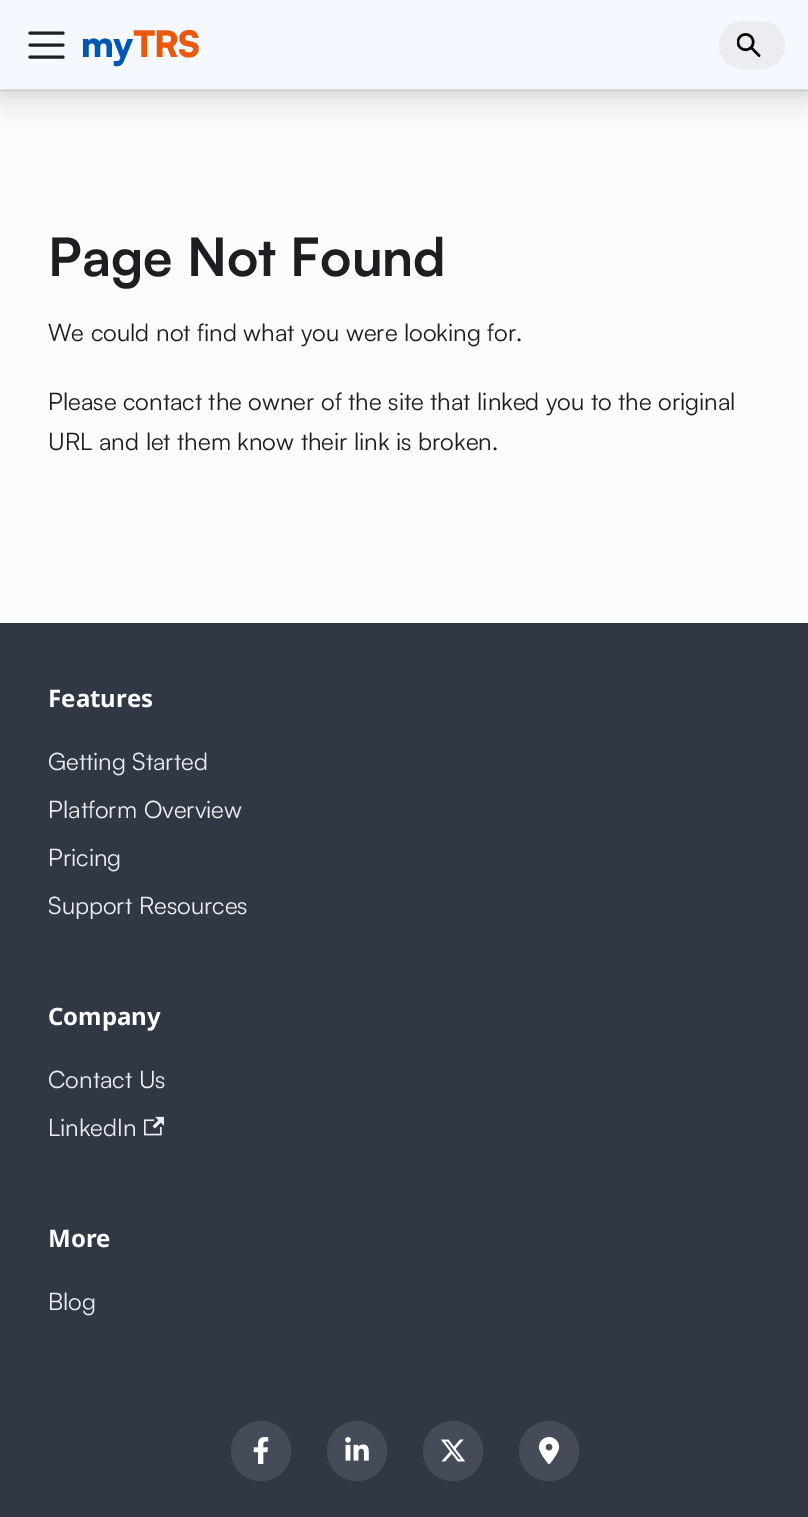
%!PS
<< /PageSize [808 1517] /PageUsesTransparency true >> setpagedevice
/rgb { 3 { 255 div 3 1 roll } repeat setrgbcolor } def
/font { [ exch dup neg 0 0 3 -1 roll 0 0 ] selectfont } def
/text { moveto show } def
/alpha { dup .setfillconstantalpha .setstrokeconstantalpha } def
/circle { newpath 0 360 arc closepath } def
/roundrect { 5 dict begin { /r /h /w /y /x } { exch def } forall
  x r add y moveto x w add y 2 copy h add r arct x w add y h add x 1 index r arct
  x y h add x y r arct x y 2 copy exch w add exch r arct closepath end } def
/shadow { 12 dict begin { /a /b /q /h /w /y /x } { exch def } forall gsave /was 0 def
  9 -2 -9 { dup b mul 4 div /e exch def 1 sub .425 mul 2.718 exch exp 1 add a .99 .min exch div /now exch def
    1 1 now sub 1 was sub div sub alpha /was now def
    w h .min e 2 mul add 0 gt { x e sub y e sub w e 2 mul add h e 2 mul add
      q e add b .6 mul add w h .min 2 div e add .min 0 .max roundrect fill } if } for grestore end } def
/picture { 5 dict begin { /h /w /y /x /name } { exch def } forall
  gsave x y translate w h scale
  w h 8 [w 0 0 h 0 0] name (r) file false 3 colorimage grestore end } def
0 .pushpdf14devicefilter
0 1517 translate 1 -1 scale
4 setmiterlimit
252 252 252 rgb
0 0 808 1517 rectfill
0 0 0 rgb
0 12 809 90 0 18 0.1 shadow
0 3 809 90 0 6 0.08 shadow
245 248 255 rgb
0 0 808 90 rectfill
0.1 alpha
0 0 0 rgb
0 89 808 2 rectfill
1 alpha
28 30 33 rgb
3 setlinewidth
1 setlinecap
30 33 moveto 33 0 rlineto 30 45 moveto 33 0 rlineto 30 57 moveto 33 0 rlineto stroke
235 237 240 rgb
719 21 66 48 24 roundrect fill
(img_01.rgb) 737 33 24 24 picture
48 56 70 rgb
0 623 808 894 rectfill
(img_02.rgb) 144 1116 20 20 picture
69 76 89 rgb
261 1451 30 circle fill
(img_03.rgb) 253 1437 16 27 picture
357 1451 30 circle fill
(img_04.rgb) 345 1437 24 24 picture
453 1451 30 circle fill
(img_05.rgb) 441 1439 24 23 picture
549 1451 30 circle fill
(img_06.rgb) 538 1437 22 27 picture
/Satoshi-Black 36 font
0 86 179 rgb
81 57 moveto -1 0 (my) ashow
234 88 12 rgb
133 57 moveto -1 0 (TRS) ashow
/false-Bold 52.75 font
28 30 33 rgb
(Page Not Found) 48 276 text
/false-Regular 24 font
(We could not find what you were looking for.) 48 341 text
(Please contact the owner of the site that linked you to the original) 48 410 text
(URL and let them know their link is broken.) 48 450 text
/NotoSans-Bold 24 font
255 255 255 rgb
(Features) 48 707 text
/false-Regular 24 font
235 237 240 rgb
(Getting Started) 48 770 text
(Platform Overview) 48 818 text
(Pricing) 48 866 text
(Support Resources) 48 914 text
/NotoSans-Bold 24 font
255 255 255 rgb
(Company) 48 1025 text
/false-Regular 24 font
235 237 240 rgb
(Contact Us) 48 1088 text
(LinkedIn) 48 1136 text
/NotoSans-Bold 24 font
255 255 255 rgb
(More) 48 1247 text
/false-Regular 24 font
235 237 240 rgb
(Blog) 48 1310 text
.poppdf14devicefilter showpage
